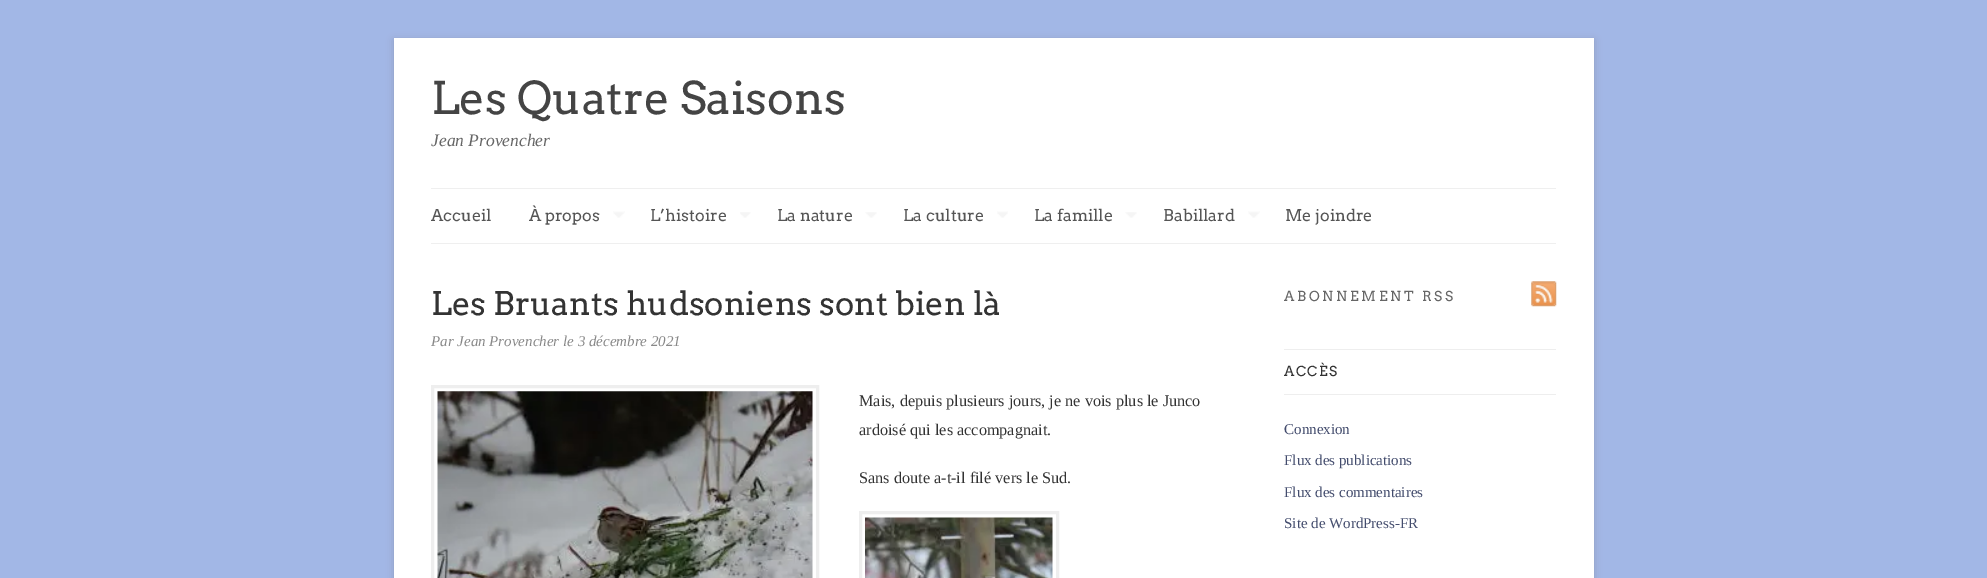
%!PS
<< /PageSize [1987 578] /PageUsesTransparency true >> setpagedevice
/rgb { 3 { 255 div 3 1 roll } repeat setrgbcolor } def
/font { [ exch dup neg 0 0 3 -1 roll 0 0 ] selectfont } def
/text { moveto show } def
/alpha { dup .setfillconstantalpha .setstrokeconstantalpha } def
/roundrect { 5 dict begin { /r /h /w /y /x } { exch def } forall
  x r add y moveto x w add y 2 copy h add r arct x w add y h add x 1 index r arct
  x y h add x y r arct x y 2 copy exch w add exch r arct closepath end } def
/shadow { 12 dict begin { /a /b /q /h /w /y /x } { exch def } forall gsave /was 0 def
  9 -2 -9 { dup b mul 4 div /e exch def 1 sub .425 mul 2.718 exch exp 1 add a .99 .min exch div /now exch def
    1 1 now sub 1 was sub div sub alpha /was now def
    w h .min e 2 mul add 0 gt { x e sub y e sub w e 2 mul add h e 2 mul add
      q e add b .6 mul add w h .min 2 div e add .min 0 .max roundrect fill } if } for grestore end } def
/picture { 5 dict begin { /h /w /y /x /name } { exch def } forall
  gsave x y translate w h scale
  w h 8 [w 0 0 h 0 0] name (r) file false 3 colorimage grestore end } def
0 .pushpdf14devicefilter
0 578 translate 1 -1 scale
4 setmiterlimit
162 183 230 rgb
0 0 1987 578 rectfill
100 100 100 rgb
394 40 1200 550 0 4 0.3 shadow
255 255 255 rgb
394 38 1200 540 rectfill
239 239 239 rgb
431 188 1125 1 rectfill
431 243 1125 1 rectfill
(img_01.rgb) 613 211 12 7 picture
(img_02.rgb) 740 212 11 6 picture
(img_03.rgb) 865 212 12 6 picture
(img_04.rgb) 997 211 11 7 picture
(img_05.rgb) 1125 212 12 6 picture
(img_01.rgb) 1248 211 12 7 picture
238 238 238 rgb
3 setlinewidth
432.5 386.5 385 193 rectstroke
(img_06.rgb) 437 391 376 187 picture
860.5 512.5 197 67 rectstroke
(img_07.rgb) 865 517 188 61 picture
(img_08.rgb) 1531 281 26 26 picture
1284 349 272 1 rectfill
1284 394 272 1 rectfill
/Arvo-Regular 45 font
68 68 68 rgb
(Les Quatre Saisons) 431 114 text
/LiberationSerif-Italic 17.5 font
102 102 102 rgb
(Jean Provencher) 431 146 text
/Arvo-Regular 16.25 font
85 85 85 rgb
(Accueil) 431 221 text
(À propos) 529 221 text
(L’histoire) 650 221 text
(La nature) 777 221 text
(La culture) 903 221 text
(La famille) 1034 221 text
(Babillard) 1163 221 text
(Me joindre) 1285 221 text
/Arvo-Regular 32.5 font
51 51 51 rgb
(Les Bruants hudsoniens sont bien là) 431 315 text
/LiberationSerif-Italic 15 font
136 136 136 rgb
(Par Jean Provencher le 3 décembre 2021) 431 346 text
/LiberationSerif-Regular 16.25 font
51 51 51 rgb
(Mais, depuis plusieurs jours, je ne vois plus le Junco) 859 406 text
(ardoisé qui les accompagnait.) 859 435 text
(Sans doute a-t-il filé vers le Sud.) 859 483 text
/Arvo-Regular 13.75 font
102 102 102 rgb
1284 301 moveto 2.75 0 (ABONNEMENT RSS) ashow
51 51 51 rgb
1284 376 moveto 1.5 0 (ACCÈS) ashow
/LiberationSerif-Regular 15 font
67 76 109 rgb
(Connexion) 1284 434 text
(Flux des publications) 1284 465 text
(Flux des commentaires) 1284 497 text
(Site de WordPress-FR) 1284 528 text
.poppdf14devicefilter showpage
